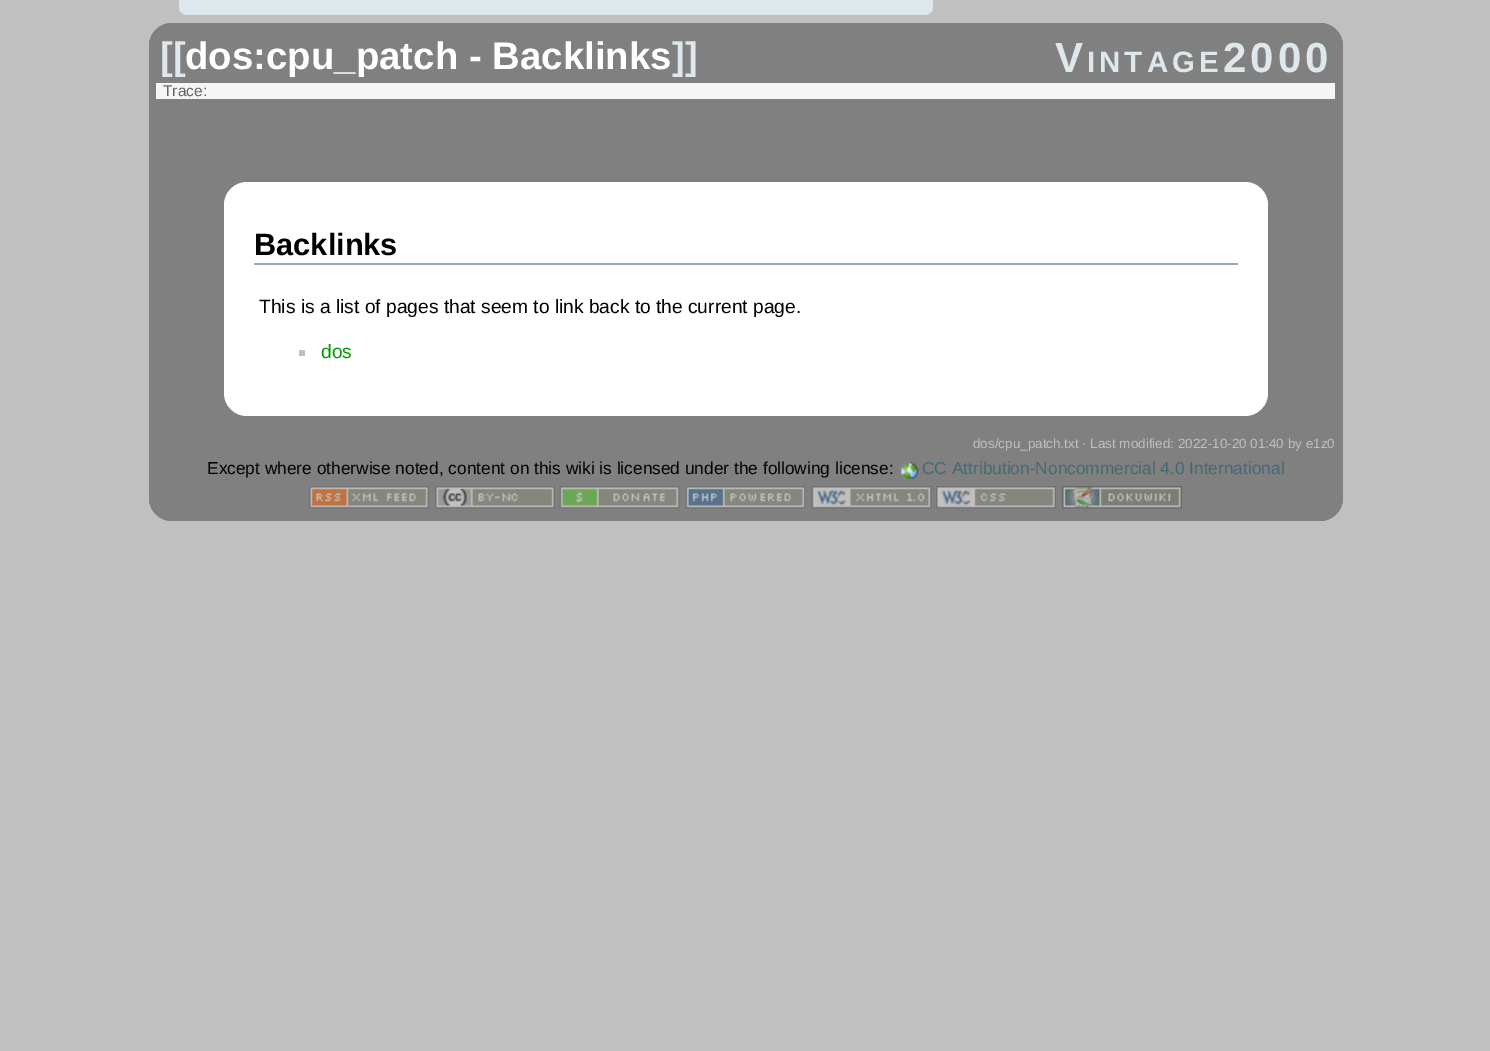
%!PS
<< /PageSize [1490 1051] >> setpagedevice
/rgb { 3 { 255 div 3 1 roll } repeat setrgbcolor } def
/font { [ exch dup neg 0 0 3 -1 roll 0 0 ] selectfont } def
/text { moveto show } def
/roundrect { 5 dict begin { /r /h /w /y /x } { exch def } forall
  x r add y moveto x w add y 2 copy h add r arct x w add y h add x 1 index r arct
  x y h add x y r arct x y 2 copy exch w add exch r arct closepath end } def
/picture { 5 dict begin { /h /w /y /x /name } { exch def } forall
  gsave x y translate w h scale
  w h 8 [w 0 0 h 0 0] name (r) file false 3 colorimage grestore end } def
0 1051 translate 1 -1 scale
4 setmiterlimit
192 192 192 rgb
0 0 1490 1051 rectfill
128 128 128 rgb
149 23 1194 498 23 roundrect fill
172 23 moveto 1148 0 rlineto 12.5 0 23 10.5 23 23 rcurveto 0 61 rlineto -1194 0 rlineto 0 -61 rlineto 0 -12.5 10.5 -23 23 -23 rcurveto closepath fill
222 231 236 rgb
179 -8 moveto 754 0 rlineto 0 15 rlineto 0 4.5 -3.5 8 -8 8 rcurveto -738 0 rlineto -4.5 0 -8 -3.5 -8 -8 rcurveto closepath fill
245 245 245 rgb
156 83 1179 16 rectfill
255 255 255 rgb
224 182 1044 234 23 roundrect fill
140 172 187 rgb
254 263 984 2 rectfill
192 192 192 rgb
299 350 6 6 rectfill
128 128 128 rgb
149 416 moveto 1194 0 rlineto 0 82 rlineto 0 12.5 -10.5 23 -23 23 rcurveto -1148 0 rlineto -12.5 0 -23 -10.5 -23 -23 rcurveto closepath fill
(img_01.rgb) 900 461 19 18 picture
(img_02.rgb) 309 486 120 23 picture
(img_03.rgb) 435 486 120 23 picture
(img_04.rgb) 559 486 121 23 picture
(img_05.rgb) 685 486 121 23 picture
(img_06.rgb) 811 486 121 23 picture
(img_07.rgb) 936 486 120 23 picture
(img_08.rgb) 1062 486 120 23 picture
/LiberationSans-Bold 38.4 font
222 231 236 rgb
([[) 160 69 text
255 255 255 rgb
(dos:cpu_patch - Backlinks) 185 69 text
222 231 236 rgb
(]]) 672 69 text
/LiberationSans-Bold 42 font
1055 72 moveto 4 0 (V) ashow
/LiberationSans-Bold 29.5 font
1087 72 moveto 4 0 (INTAGE) ashow
/LiberationSans-Bold 42 font
1223 72 moveto 4 0 (2000) ashow
/LiberationSans-Regular 15.5 font
102 102 102 rgb
(Trace:) 163 96 text
/LiberationSans-Bold 30.75 font
0 0 0 rgb
(Backlinks) 254 255 text
/LiberationSans-Regular 19.2 font
(This is a list of pages that seem to link back to the current page.) 259 313 text
0 153 0 rgb
(dos) 321 358 text
/LiberationSans-Regular 13.45 font
192 192 192 rgb
(dos/cpu_patch.txt · Last modified: 2022-10-20 01:40 by e1z0) 973 448 text
/LiberationSans-Regular 17.3 font
0 0 0 rgb
(Except where otherwise noted, content on this wiki is licensed under the following license:) 207 474 text
67 105 118 rgb
(CC Attribution-Noncommercial 4.0 International) 922 474 text
showpage
